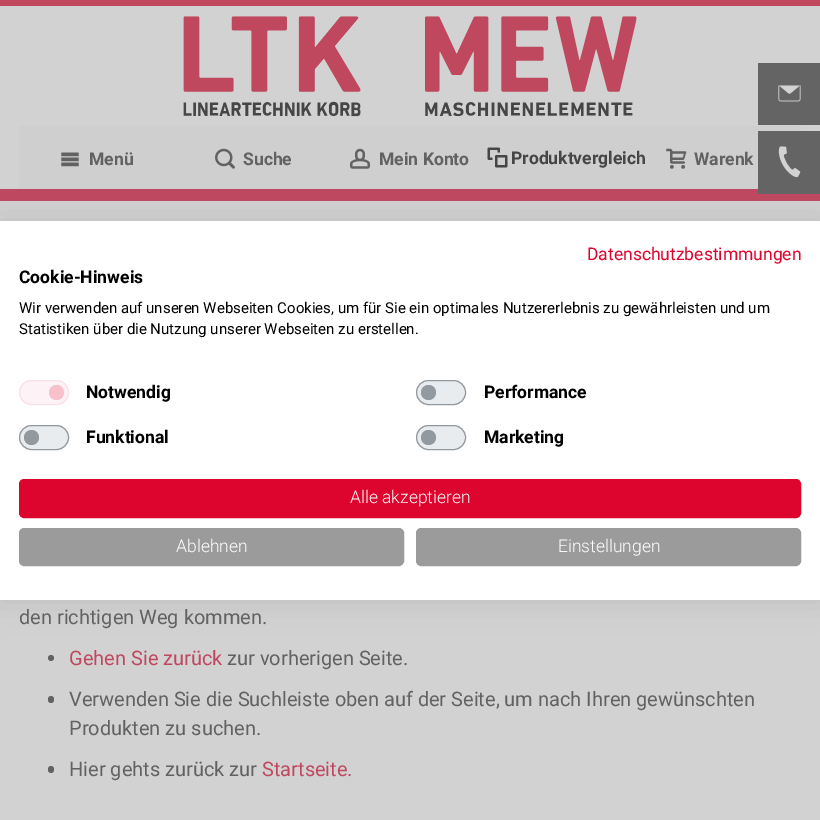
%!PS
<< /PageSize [820 820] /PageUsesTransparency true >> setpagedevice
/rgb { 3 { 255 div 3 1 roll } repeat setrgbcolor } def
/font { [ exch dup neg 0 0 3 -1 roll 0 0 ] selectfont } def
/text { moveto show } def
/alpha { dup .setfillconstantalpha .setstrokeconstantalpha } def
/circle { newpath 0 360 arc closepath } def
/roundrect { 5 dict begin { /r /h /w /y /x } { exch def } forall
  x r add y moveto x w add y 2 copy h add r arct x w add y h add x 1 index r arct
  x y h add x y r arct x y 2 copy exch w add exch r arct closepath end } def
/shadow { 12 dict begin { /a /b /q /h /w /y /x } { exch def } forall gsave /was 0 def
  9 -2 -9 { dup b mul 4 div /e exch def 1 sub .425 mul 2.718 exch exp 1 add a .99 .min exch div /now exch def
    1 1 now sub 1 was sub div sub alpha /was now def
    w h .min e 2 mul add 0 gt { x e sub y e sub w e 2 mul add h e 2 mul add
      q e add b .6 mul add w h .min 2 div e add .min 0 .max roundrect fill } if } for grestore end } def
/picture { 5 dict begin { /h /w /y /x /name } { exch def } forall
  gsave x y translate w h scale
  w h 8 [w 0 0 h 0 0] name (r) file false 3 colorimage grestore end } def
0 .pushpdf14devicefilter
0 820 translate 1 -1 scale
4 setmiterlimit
210 210 210 rgb
0 0 820 820 rectfill
191 72 95 rgb
0 0 820 6 rectfill
(img_01.rgb) 183 16 454 101 picture
207 207 207 rgb
19 126 782 63 rectfill
(img_02.rgb) 61 152 18 15 picture
(img_03.rgb) 215 148 20 21 picture
(img_04.rgb) 350 148 20 21 picture
(img_05.rgb) 487 147 21 21 picture
(img_06.rgb) 666 148 21 21 picture
191 72 95 rgb
0 189 820 12 rectfill
100 100 100 rgb
758 63 62 62 rectfill
(img_07.rgb) 778 85 23 17 picture
758 131 62 63 rectfill
(img_08.rgb) 778 146 23 32 picture
98 98 98 rgb
51 658 3 circle fill
48 696 6 7 3 roundrect fill
48 766 6 7 3 roundrect fill
0 0 0 rgb
0 221 820 379 0 15 0.1 shadow
255 255 255 rgb
0 221 820 379 rectfill
253 242 245 rgb
19 380 50 25 12.5 roundrect fill
247 192 203 rgb
56.5 392.5 7.5 circle fill
251 224 229 rgb
19.5 380.5 49 24 12 roundrect stroke
233 236 239 rgb
416 380 50 25 12.5 roundrect fill
146 153 159 rgb
428.5 392.5 7.5 circle fill
0.7 alpha
108 117 125 rgb
416.5 380.5 49 24 12 roundrect stroke
1 alpha
233 236 239 rgb
19 425 50 25 12.5 roundrect fill
146 153 159 rgb
31.5 437.5 7.5 circle fill
0.7 alpha
108 117 125 rgb
19.5 425.5 49 24 12 roundrect stroke
1 alpha
233 236 239 rgb
416 425 50 25 12.5 roundrect fill
146 153 159 rgb
428.5 437.5 7.5 circle fill
0.7 alpha
108 117 125 rgb
416.5 425.5 49 24 12 roundrect stroke
1 alpha
221 4 45 rgb
19.5 479.5 781 38 4.5 roundrect gsave fill grestore
stroke
155 155 155 rgb
19.5 528.5 384 37 4.5 roundrect gsave fill grestore
stroke
416.5 528.5 384 37 4.5 roundrect gsave fill grestore
stroke
/Roboto-Bold 17.5 font
98 98 98 rgb
(Menü) 89 165 text
(Suche) 243 165 text
(Mein Konto) 379 165 text
70 70 70 rgb
(Produktvergleich) 511 164 text
98 98 98 rgb
(Warenk) 694 165 text
/Roboto-Regular 20 font
(den richtigen Weg kommen.) 19 624 text
191 72 95 rgb
(Gehen Sie zurück) 69 665 text
98 98 98 rgb
(zur vorherigen Seite.) 227 665 text
(Verwenden Sie die Suchleiste oben auf der Seite, um nach Ihren gewünschten) 69 706 text
(Produkten zu suchen.) 69 735 text
(Hier gehts zurück zur) 69 776 text
191 72 95 rgb
(Startseite.) 262 776 text
/Roboto-Regular 17.5 font
221 4 45 rgb
(Datenschutzbestimmungen) 587 260 text
/Roboto-Bold 17.5 font
0 0 0 rgb
(Cookie-Hinweis) 19 283 text
/Roboto-Regular 15 font
(Wir verwenden auf unseren Webseiten Cookies, um für Sie ein optimales Nutzererlebnis zu gewährleisten und um) 19 313 text
(Statistiken über die Nutzung unserer Webseiten zu erstellen.) 19 334 text
/Roboto-Bold 17.5 font
(Notwendig) 86 398 text
(Performance) 484 398 text
(Funktional) 86 443 text
(Marketing) 484 443 text
/Roboto-Light 17.5 font
255 255 255 rgb
(Alle akzeptieren) 350 503 text
(Ablehnen) 176 552 text
(Einstellungen) 558 552 text
.poppdf14devicefilter showpage
